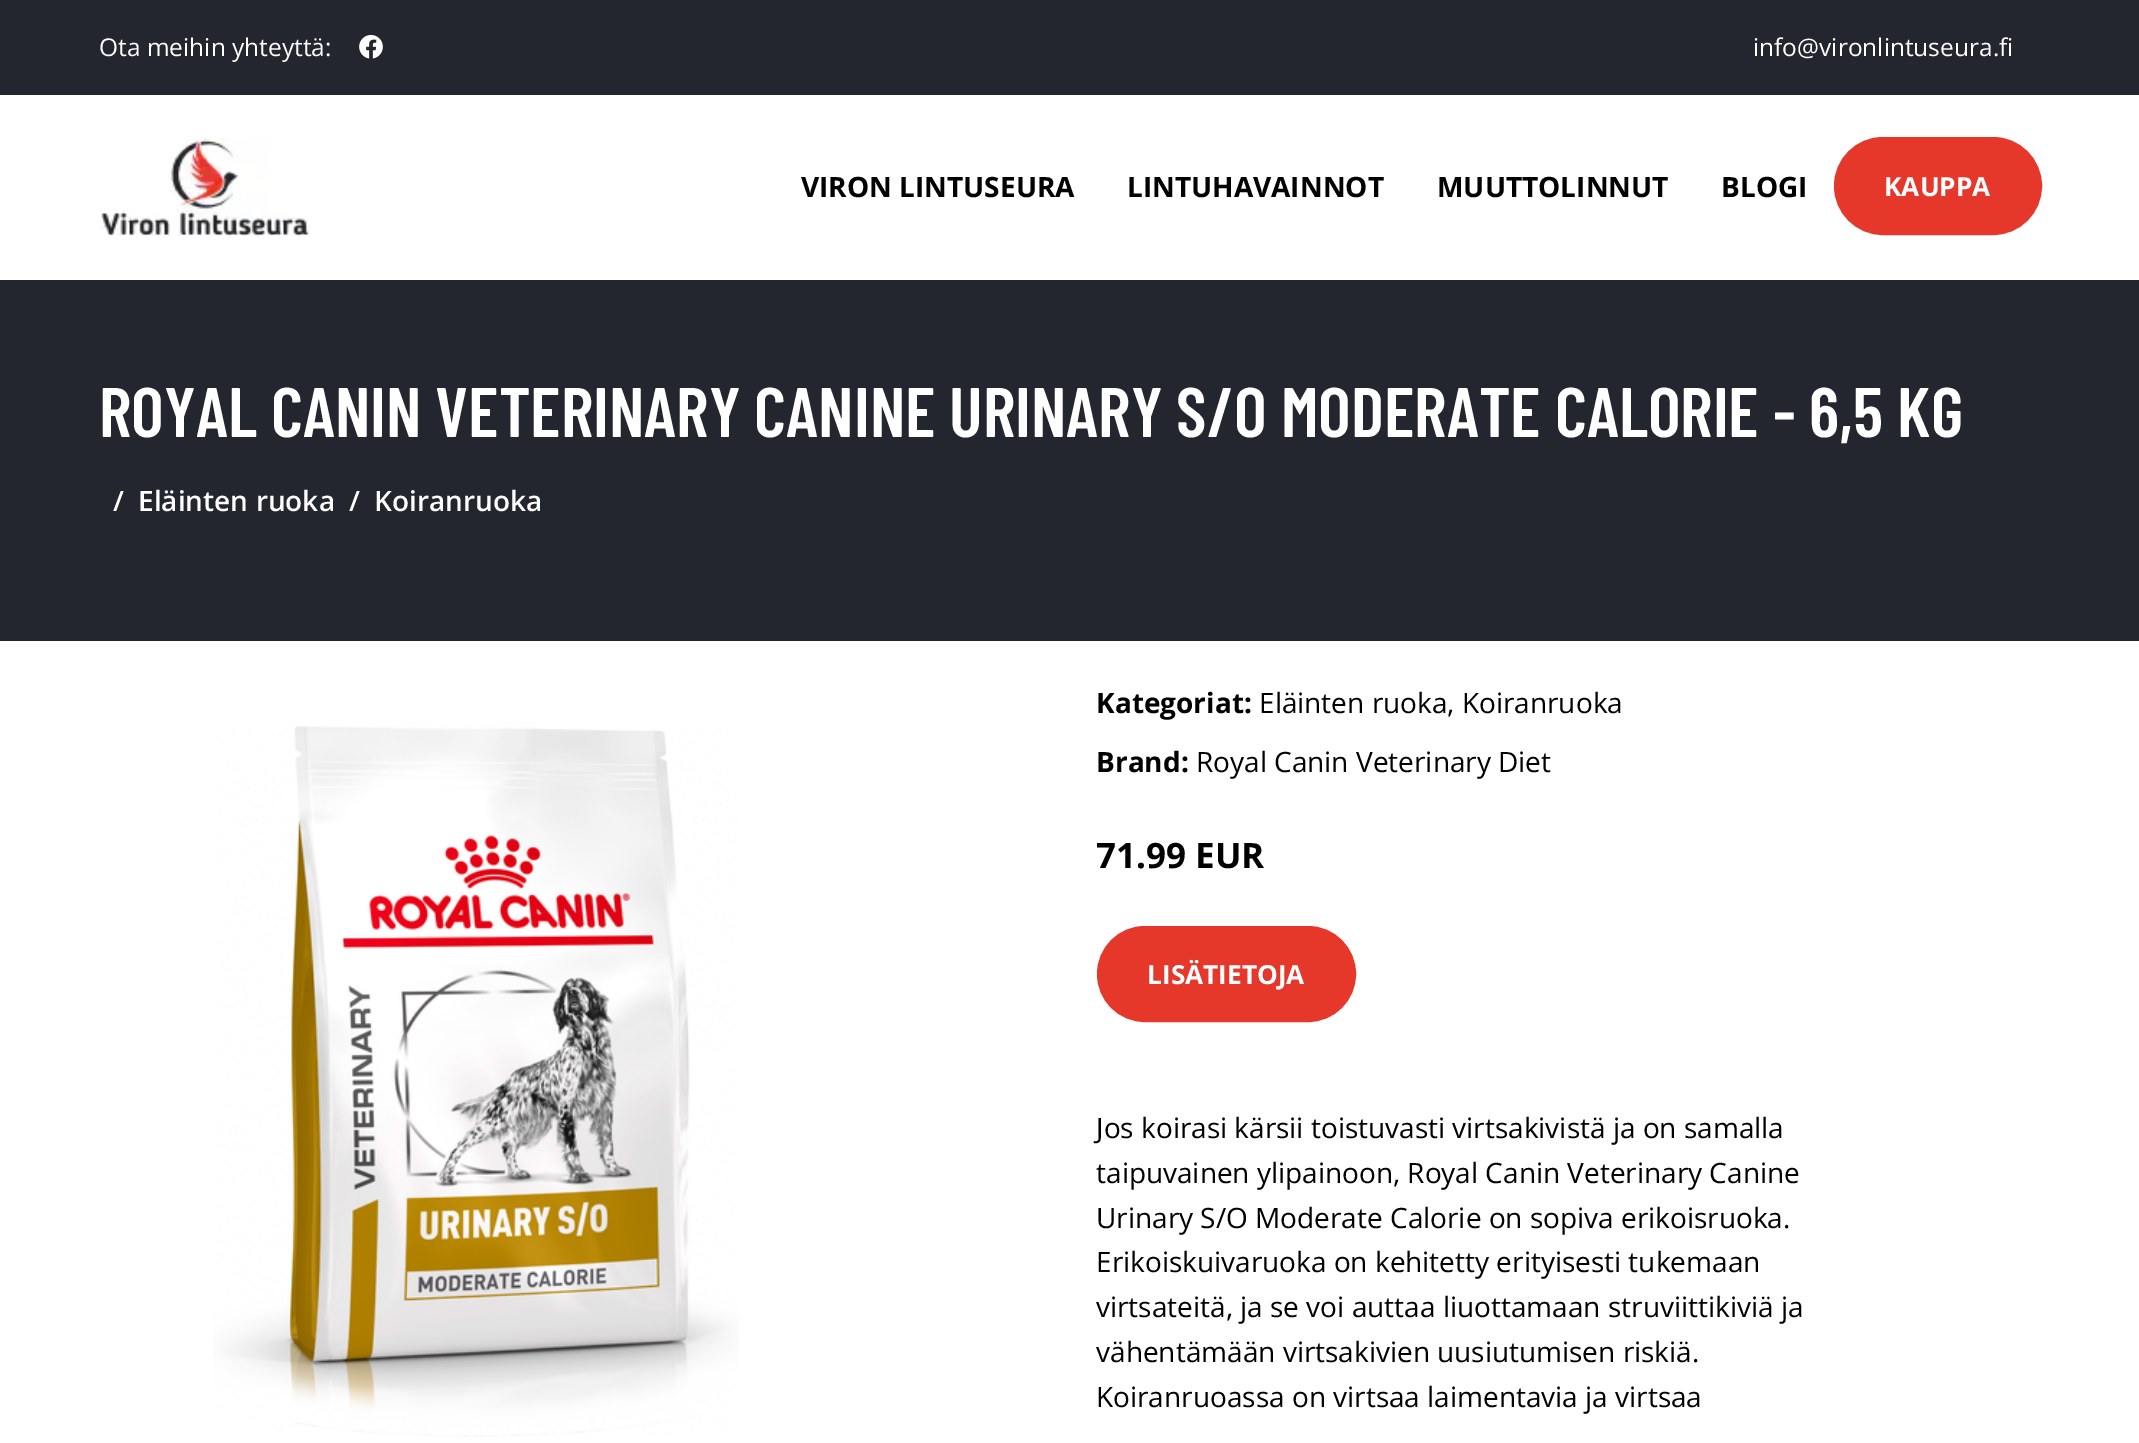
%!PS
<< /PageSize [2139 1443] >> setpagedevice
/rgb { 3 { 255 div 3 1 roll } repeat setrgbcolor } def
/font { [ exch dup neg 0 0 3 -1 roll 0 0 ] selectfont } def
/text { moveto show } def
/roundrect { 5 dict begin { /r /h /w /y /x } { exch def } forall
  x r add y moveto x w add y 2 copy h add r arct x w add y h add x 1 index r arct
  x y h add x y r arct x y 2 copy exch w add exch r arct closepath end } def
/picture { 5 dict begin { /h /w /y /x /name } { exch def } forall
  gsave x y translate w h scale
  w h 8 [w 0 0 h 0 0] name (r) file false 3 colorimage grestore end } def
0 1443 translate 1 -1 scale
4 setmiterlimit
255 255 255 rgb
0 0 2139 1443 rectfill
35 37 47 rgb
0 0 2139 95 rectfill
(img_01.rgb) 359 35 24 24 picture
(img_02.rgb) 100 138 210 99 picture
230 55 43 rgb
1835 138 206 96 48 roundrect gsave fill grestore
2 setlinewidth
stroke
35 37 47 rgb
0 280 2139 361 rectfill
(img_03.rgb) 213 726 526 711 picture
230 55 43 rgb
1098 927 257 94 47 roundrect gsave fill grestore
stroke
/OpenSans-Regular 24.5 font
255 255 255 rgb
(Ota meihin yhteyttä:) 99 56 text
(info@vironlintuseura.fi) 1753 56 text
/OpenSans-Bold 28 font
0 0 0 rgb
(VIRON LINTUSEURA) 801 197 text
(LINTUHAVAINNOT) 1127 197 text
(MUUTTOLINNUT) 1437 197 text
(BLOGI) 1721 197 text
/OpenSans-Bold 26.25 font
255 255 255 rgb
(KAUPPA) 1884 196 text
/BarlowCondensed-SemiBold 70 font
(ROYAL CANIN VETERINARY CANINE URINARY S/O MODERATE CALORIE - 6,5 KG) 99 437 text
/OpenSans-SemiBold 28 font
(/) 113 511 text
(Eläinten ruoka) 138 511 text
(/) 349 511 text
(Koiranruoka) 374 511 text
/OpenSans-Bold 28 font
0 0 0 rgb
(Kategoriat:) 1096 713 text
/OpenSans-Regular 28 font
(Eläinten ruoka, Koiranruoka) 1259 713 text
/OpenSans-Bold 28 font
(Brand:) 1096 772 text
/OpenSans-Regular 28 font
(Royal Canin Veterinary Diet) 1196 772 text
/OpenSans-Bold 35 font
(71.99 EUR) 1096 868 text
/OpenSans-Bold 26.25 font
255 255 255 rgb
(LISÄTIETOJA) 1147 984 text
/OpenSans-Regular 28 font
0 0 0 rgb
(Jos koirasi kärsii toistuvasti virtsakivistä ja on samalla) 1096 1138 text
(taipuvainen ylipainoon, Royal Canin Veterinary Canine) 1096 1183 text
(Urinary S/O Moderate Calorie on sopiva erikoisruoka.) 1096 1228 text
(Erikoiskuivaruoka on kehitetty erityisesti tukemaan) 1096 1272 text
(virtsateitä, ja se voi auttaa liuottamaan struviittikiviä ja) 1096 1317 text
(vähentämään virtsakivien uusiutumisen riskiä.) 1096 1362 text
(Koiranruoassa on virtsaa laimentavia ja virtsaa) 1096 1407 text
showpage
